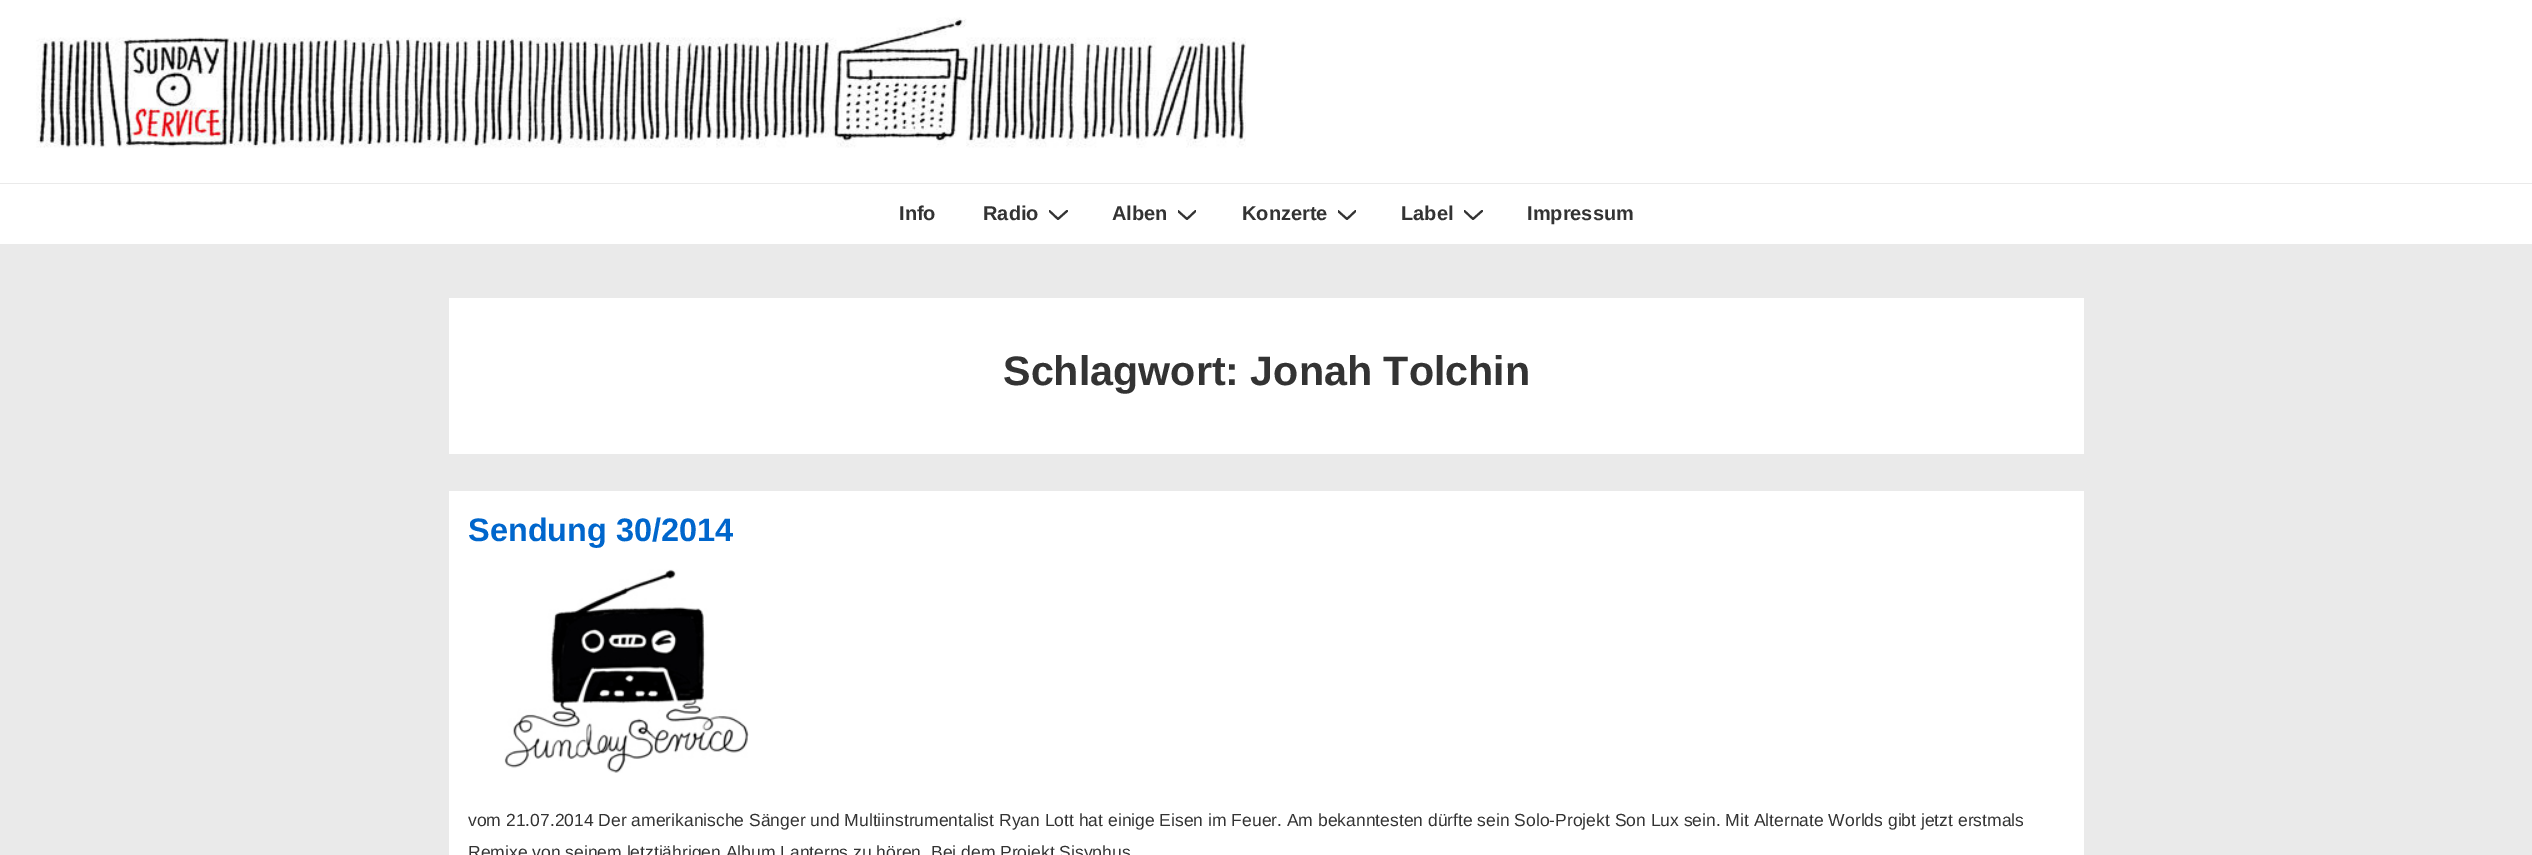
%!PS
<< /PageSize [2532 855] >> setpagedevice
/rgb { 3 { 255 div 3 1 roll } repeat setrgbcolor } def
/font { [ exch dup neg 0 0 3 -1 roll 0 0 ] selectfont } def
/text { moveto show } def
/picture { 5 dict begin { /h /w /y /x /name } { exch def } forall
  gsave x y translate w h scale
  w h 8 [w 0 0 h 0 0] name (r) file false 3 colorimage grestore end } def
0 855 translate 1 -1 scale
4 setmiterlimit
234 234 234 rgb
0 0 2532 855 rectfill
255 255 255 rgb
0 0 2532 183 rectfill
(img_01.rgb) 36 17 1210 131 picture
0 184 2532 60 rectfill
gsave
1049 210 19 10 rectclip
51 51 51 rgb
2 setlinewidth
1 setlinecap
1049.5 211 moveto 8.5 8 rlineto 9 -8 rlineto stroke
grestore
gsave
1178 210 18 10 rectclip
51 51 51 rgb
2 setlinewidth
1 setlinecap
1178 211 moveto 9 8 rlineto 8.5 -8 rlineto stroke
grestore
gsave
1338 210 18 10 rectclip
51 51 51 rgb
2 setlinewidth
1 setlinecap
1338 211 moveto 9 8 rlineto 8.5 -8 rlineto stroke
grestore
gsave
1464 210 19 10 rectclip
51 51 51 rgb
2 setlinewidth
1 setlinecap
1464.5 211 moveto 8.5 8 rlineto 9 -8 rlineto stroke
grestore
449 298 1635 156 rectfill
449 491 1635 364 rectfill
(img_02.rgb) 504 569 245 204 picture
/LiberationSans-Bold 20 font
51 51 51 rgb
(Info) 899 220 text
(Radio) 983 220 text
(Alben) 1112 220 text
(Konzerte) 1242 220 text
(Label) 1401 220 text
(Impressum) 1527 220 text
/LiberationSans-Bold 41.25 font
(Schlagwort: Jonah Tolchin) 1003 385 text
/LiberationSans-Bold 32.5 font
0 102 204 rgb
(Sendung 30/2014) 468 541 text
/LiberationSans-Regular 17.5 font
51 51 51 rgb
(vom 21.07.2014 Der amerikanische Sänger und Multiinstrumentalist Ryan Lott hat einige Eisen im Feuer. Am bekanntesten dürfte sein Solo-Projekt Son Lux sein. Mit Alternate Worlds gibt jetzt erstmals) 468 826 text
(Remixe von seinem letztjährigen Album Lanterns zu hören. Bei dem Projekt Sisyphus) 468 858 text
showpage
